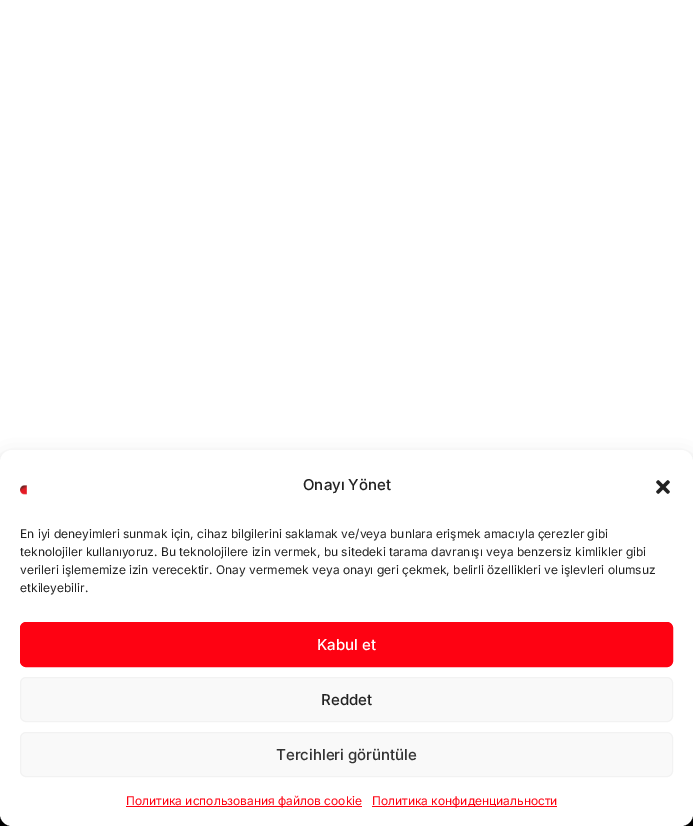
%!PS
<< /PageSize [693 826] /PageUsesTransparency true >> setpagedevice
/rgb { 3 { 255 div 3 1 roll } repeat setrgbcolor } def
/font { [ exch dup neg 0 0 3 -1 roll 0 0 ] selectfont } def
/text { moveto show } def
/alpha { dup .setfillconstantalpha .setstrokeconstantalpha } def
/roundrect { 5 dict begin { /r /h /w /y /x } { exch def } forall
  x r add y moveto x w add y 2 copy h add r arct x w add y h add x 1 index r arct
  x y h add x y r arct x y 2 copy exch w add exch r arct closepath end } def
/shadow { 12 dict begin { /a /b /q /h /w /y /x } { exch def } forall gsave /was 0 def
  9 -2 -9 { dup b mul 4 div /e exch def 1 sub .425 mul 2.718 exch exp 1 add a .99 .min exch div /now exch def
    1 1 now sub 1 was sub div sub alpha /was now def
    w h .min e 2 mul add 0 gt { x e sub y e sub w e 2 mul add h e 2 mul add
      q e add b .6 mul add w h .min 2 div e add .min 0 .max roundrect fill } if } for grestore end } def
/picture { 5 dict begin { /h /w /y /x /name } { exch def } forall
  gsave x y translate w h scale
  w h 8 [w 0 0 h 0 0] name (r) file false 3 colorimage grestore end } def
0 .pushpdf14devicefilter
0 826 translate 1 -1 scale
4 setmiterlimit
255 255 255 rgb
0 0 693 826 rectfill
0 0 0 rgb
0 814 693 12 rectfill
0 456 693 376 12 3 0.23 shadow
0 460 693 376 12 10 0.19 shadow
128 128 128 rgb
623 752 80 60 2 2.5 1 shadow
255 255 255 rgb
0 450 693 376 12 roundrect fill
(img_01.rgb) 20 485 7 10 picture
(img_02.rgb) 656 480 14 14 picture
254 2 18 rgb
20.5 622.5 652 44 5.5 roundrect gsave fill grestore
stroke
249 249 249 rgb
20.5 677.5 652 44 5.5 roundrect gsave fill grestore
242 242 242 rgb
stroke
249 249 249 rgb
20.5 732.5 652 44 5.5 roundrect gsave fill grestore
242 242 242 rgb
stroke
254 2 18 rgb
126 806 236 1 rectfill
372 806 185 1 rectfill
/Inter-Medium 15 font
34 34 34 rgb
(Onayı Yönet) 303 490 text
/Inter-Regular 12 font
(En iyi deneyimleri sunmak için, cihaz bilgilerini saklamak ve/veya bunlara erişmek amacıyla çerezler gibi) 20 538 text
(teknolojiler kullanıyoruz. Bu teknolojilere izin vermek, bu sitedeki tarama davranışı veya benzersiz kimlikler gibi) 20 556 text
(verileri işlememize izin verecektir. Onay vermemek veya onayı geri çekmek, belirli özellikleri ve işlevleri olumsuz) 20 574 text
(etkileyebilir.) 20 592 text
/Inter-Medium 15 font
255 255 255 rgb
(Kabul et) 317 650 text
34 34 34 rgb
(Reddet) 321 705 text
51 51 51 rgb
(Tercihleri görüntüle) 276 760 text
/Inter-Regular 12 font
254 2 18 rgb
(Политика использования файлов cookie) 126 805 text
(Политика конфиденциальности) 372 805 text
.poppdf14devicefilter showpage
